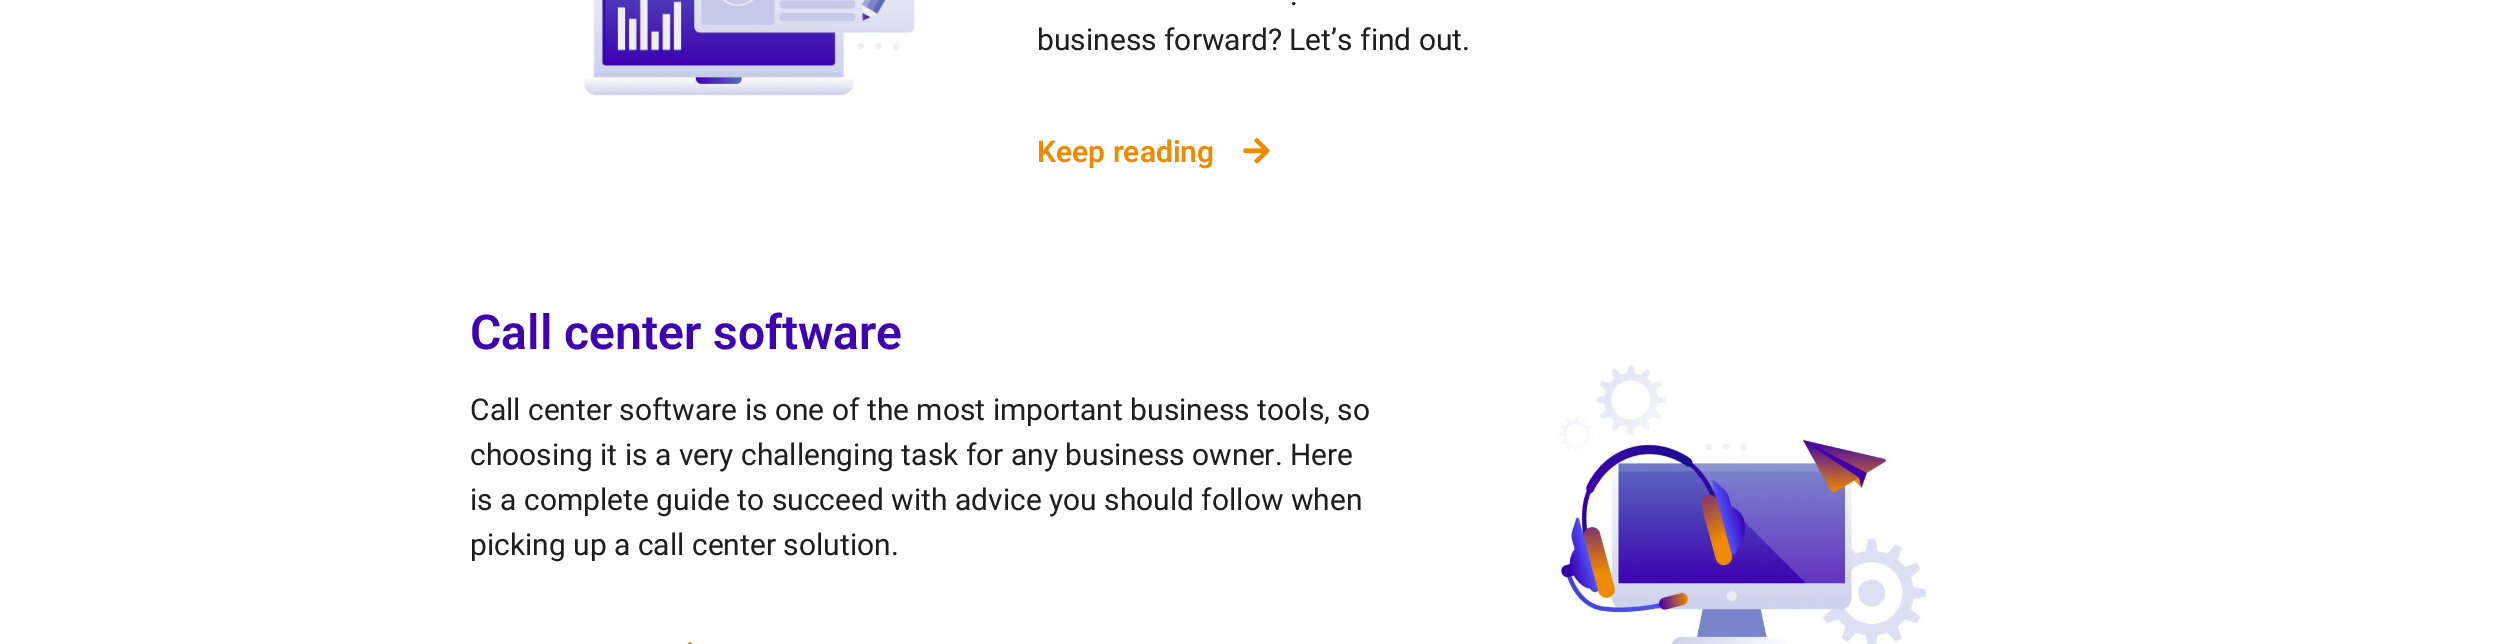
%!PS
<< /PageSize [2498 644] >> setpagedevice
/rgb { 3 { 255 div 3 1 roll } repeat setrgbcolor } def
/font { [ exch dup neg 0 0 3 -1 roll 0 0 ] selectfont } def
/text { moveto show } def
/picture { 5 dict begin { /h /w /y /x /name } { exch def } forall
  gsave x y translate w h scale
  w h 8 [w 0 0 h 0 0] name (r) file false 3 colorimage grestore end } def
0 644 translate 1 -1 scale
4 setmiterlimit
255 255 255 rgb
0 0 2498 644 rectfill
(img_01.rgb) 584 0 331 98 picture
(img_02.rgb) 1243 138 27 26 picture
(img_03.rgb) 687 642 6 2 picture
(img_04.rgb) 1556 364 370 280 picture
/Roboto-Regular 30 font
30 30 30 rgb
(.) 1290 5 text
(business forward? Let’s find out.) 1037 50 text
/Roboto-SemiBold 30 font
239 137 0 rgb
(Keep reading) 1037 162 text
/Roboto-SemiBold 48 font
62 2 177 rgb
(Call center software) 470 349 text
/Roboto-Regular 30 font
30 30 30 rgb
(Call center software is one of the most important business tools, so) 470 420 text
(choosing it is a very challenging task for any business owner. Here) 470 465 text
(is a complete guide to succeed with advice you should follow when) 470 510 text
(picking up a call center solution.) 470 555 text
showpage
